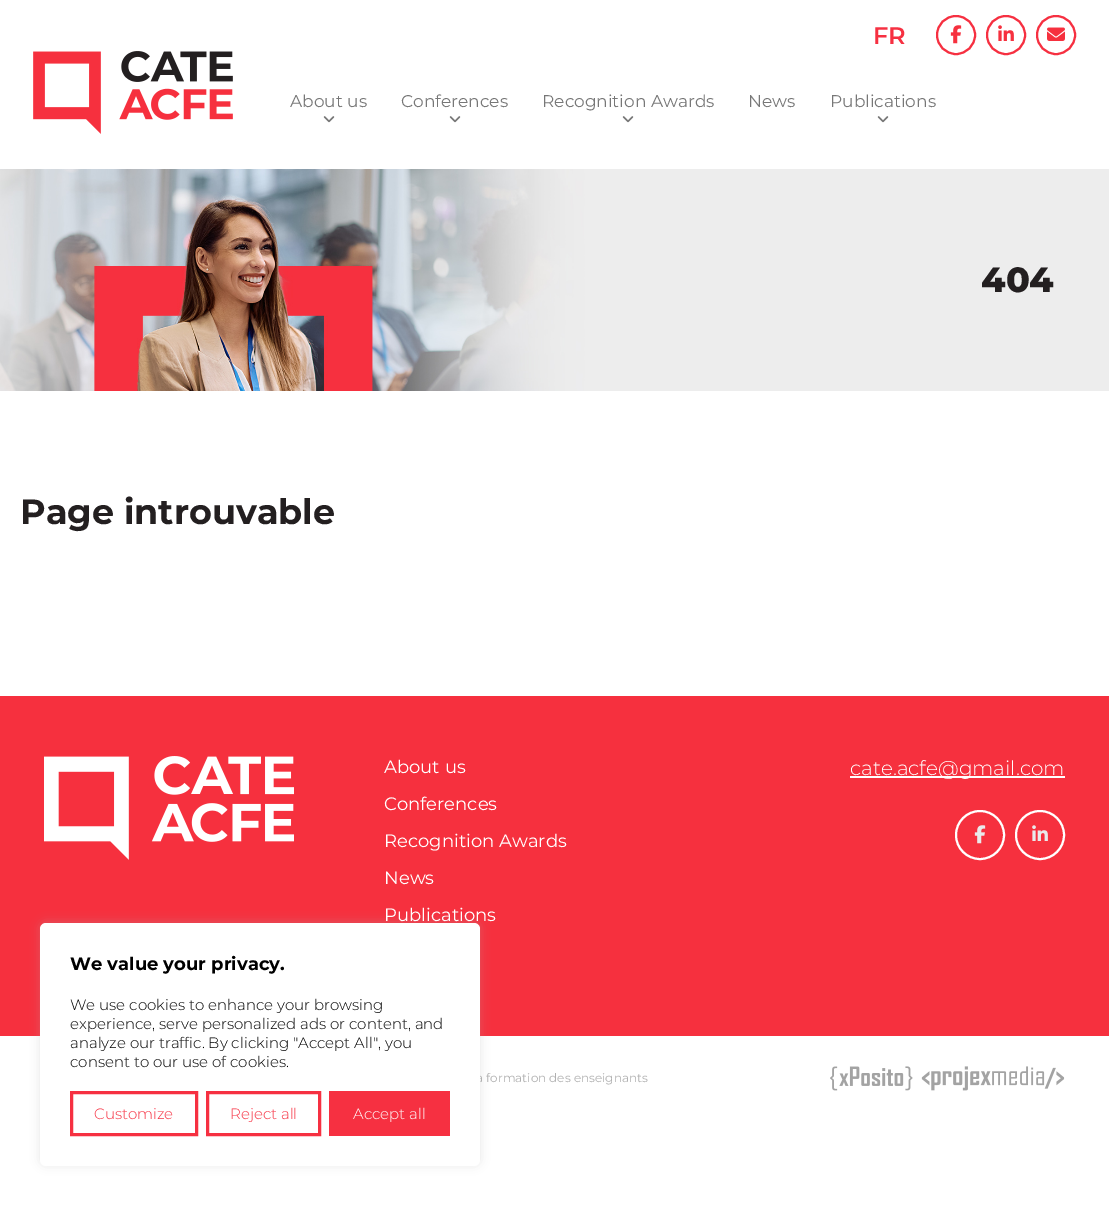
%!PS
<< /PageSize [1109 1206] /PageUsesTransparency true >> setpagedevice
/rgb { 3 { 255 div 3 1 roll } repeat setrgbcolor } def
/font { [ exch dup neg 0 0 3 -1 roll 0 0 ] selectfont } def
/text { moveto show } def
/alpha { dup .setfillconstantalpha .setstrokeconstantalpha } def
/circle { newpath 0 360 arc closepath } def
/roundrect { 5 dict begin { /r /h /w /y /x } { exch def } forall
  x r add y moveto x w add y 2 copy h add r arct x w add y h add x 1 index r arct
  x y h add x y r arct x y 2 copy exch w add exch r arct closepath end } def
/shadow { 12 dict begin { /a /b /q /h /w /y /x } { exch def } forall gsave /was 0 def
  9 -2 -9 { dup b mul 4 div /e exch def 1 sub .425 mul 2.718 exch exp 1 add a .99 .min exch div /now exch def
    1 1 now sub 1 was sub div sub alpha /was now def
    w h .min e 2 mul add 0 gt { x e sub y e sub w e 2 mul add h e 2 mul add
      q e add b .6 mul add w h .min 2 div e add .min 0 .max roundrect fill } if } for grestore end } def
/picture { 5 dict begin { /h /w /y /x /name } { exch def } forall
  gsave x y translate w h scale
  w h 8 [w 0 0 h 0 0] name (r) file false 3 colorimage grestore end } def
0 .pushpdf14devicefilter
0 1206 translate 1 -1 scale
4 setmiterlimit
255 255 255 rgb
0 0 1109 1206 rectfill
246 48 65 rgb
2 setlinewidth
956 35 19 circle stroke
(img_01.rgb) 950 25 12 19 picture
1006 35 19 circle stroke
(img_02.rgb) 998 25 16 16 picture
1056 35 19 circle stroke
(img_03.rgb) 1047 27 18 14 picture
(img_04.rgb) 33 51 200 83 picture
(img_05.rgb) 323 116 12 7 picture
(img_05.rgb) 449 116 12 7 picture
(img_05.rgb) 622 116 12 7 picture
(img_05.rgb) 877 116 12 7 picture
(img_06.rgb) 0 169 1109 222 picture
246 48 62 rgb
0 696 1109 340 rectfill
172 171 171 rgb
40 922 440 243 6 5 0.3 shadow
(img_07.rgb) 44 756 250 104 picture
255 255 255 rgb
850 776 215 2 rectfill
980 835 24 circle stroke
(img_08.rgb) 974 825 12 19 picture
1040 835 24 circle stroke
(img_09.rgb) 1032 825 16 16 picture
(img_10.rgb) 830 1066 83 25 picture
(img_11.rgb) 921 1066 144 25 picture
/Montserrat-SemiBold 24 font
246 48 65 rgb
(FR) 873 44 text
/Montserrat-Regular 17 font
119 119 119 rgb
(About us) 290 107 text
(Conferences) 401 107 text
(Recognition Awards) 542 107 text
(News) 748 107 text
(Publications) 830 107 text
/Montserrat-ExtraBold 35 font
35 31 32 rgb
(404) 981 292 text
/Montserrat-Bold 35 font
(Page introuvable) 20 524 text
/Montserrat-Regular 18 font
255 255 255 rgb
(About us) 384 773 text
(Conferences) 384 810 text
(Recognition Awards) 384 847 text
(News) 384 884 text
(Publications) 384 921 text
/Montserrat-Light 20 font
(cate.acfe@gmail.com) 850 775 text
/Montserrat-Regular 12 font
176 176 176 rgb
(a formation des enseignants) 476 1082 text
255 255 255 rgb
40 923 440 243 6 roundrect fill
246 48 65 rgb
329 1091 121 45 rectfill
/Montserrat-Light 15 font
255 255 255 rgb
(Accept all) 353 1119 text
246 48 65 rgb
3 setlinewidth
207.5 1092.5 112 42 rectstroke
(Reject all) 230 1119 text
71.5 1092.5 125 42 rectstroke
(Customize) 94 1119 text
0 0 0 rgb
(consent to our use of cookies.) 70 1067 text
(analyze our traffic. By clicking "Accept All", you) 70 1048 text
(experience, serve personalized ads or content, and) 70 1029 text
(We use cookies to enhance your browsing) 70 1010 text
/Montserrat-Bold 18 font
(We value your privacy.) 70 970 text
.poppdf14devicefilter showpage
